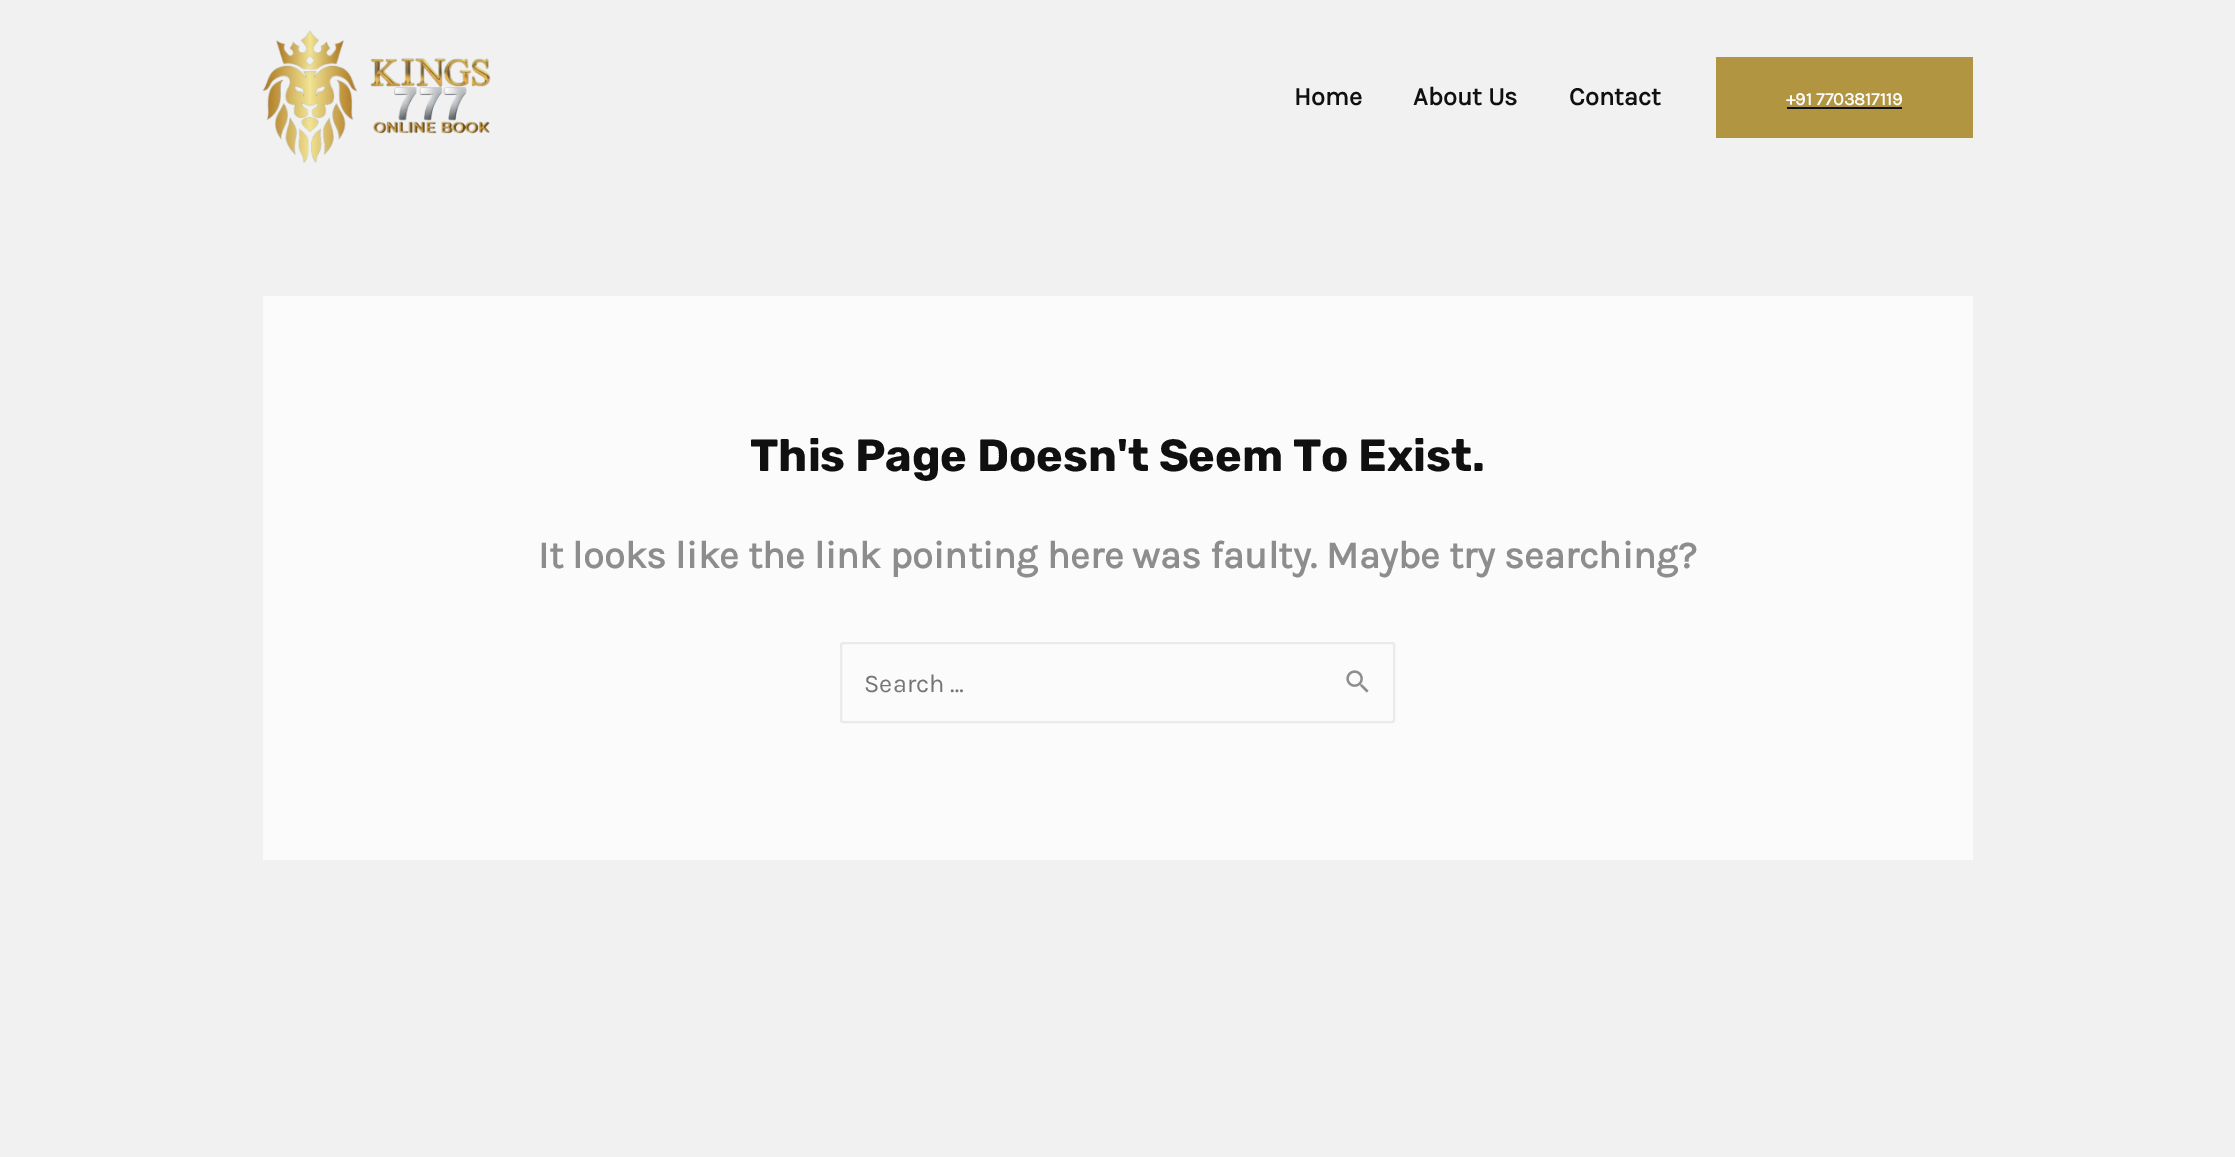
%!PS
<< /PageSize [2235 1157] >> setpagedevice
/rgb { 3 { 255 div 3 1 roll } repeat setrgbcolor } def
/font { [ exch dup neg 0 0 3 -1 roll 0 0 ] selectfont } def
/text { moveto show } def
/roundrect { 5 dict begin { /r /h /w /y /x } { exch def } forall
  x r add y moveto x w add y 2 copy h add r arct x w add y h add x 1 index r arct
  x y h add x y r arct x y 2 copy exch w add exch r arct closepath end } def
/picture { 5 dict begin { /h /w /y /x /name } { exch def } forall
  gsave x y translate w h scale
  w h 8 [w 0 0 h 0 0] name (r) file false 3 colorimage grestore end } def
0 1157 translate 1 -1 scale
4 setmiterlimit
241 241 241 rgb
0 0 2235 1157 rectfill
(img_01.rgb) 262 30 229 133 picture
177 149 64 rgb
1716 57 257 81 rectfill
16 16 16 rgb
1787 107 115 2 rectfill
251 251 251 rgb
263 296 1710 564 rectfill
234 234 234 rgb
2 setlinewidth
841 643 553 79 2 roundrect stroke
(img_02.rgb) 1346 670 23 23 picture
/Karla-Bold 25.5 font
16 16 16 rgb
(Home) 1294 105 text
(About Us) 1413 105 text
(Contact) 1569 105 text
/Karla-Bold 18 font
251 251 251 rgb
(+91 7703817119) 1786 105 text
/Rubik-Light 45 font
16 16 16 rgb
(This Page Doesn't Seem To Exist.) 750 471 text
/Karla-Bold 38.25 font
141 141 141 rgb
(It looks like the link pointing here was faulty. Maybe try searching?) 538 568 text
/Karla-Regular 25.5 font
117 117 117 rgb
(Search …) 864 692 text
showpage
